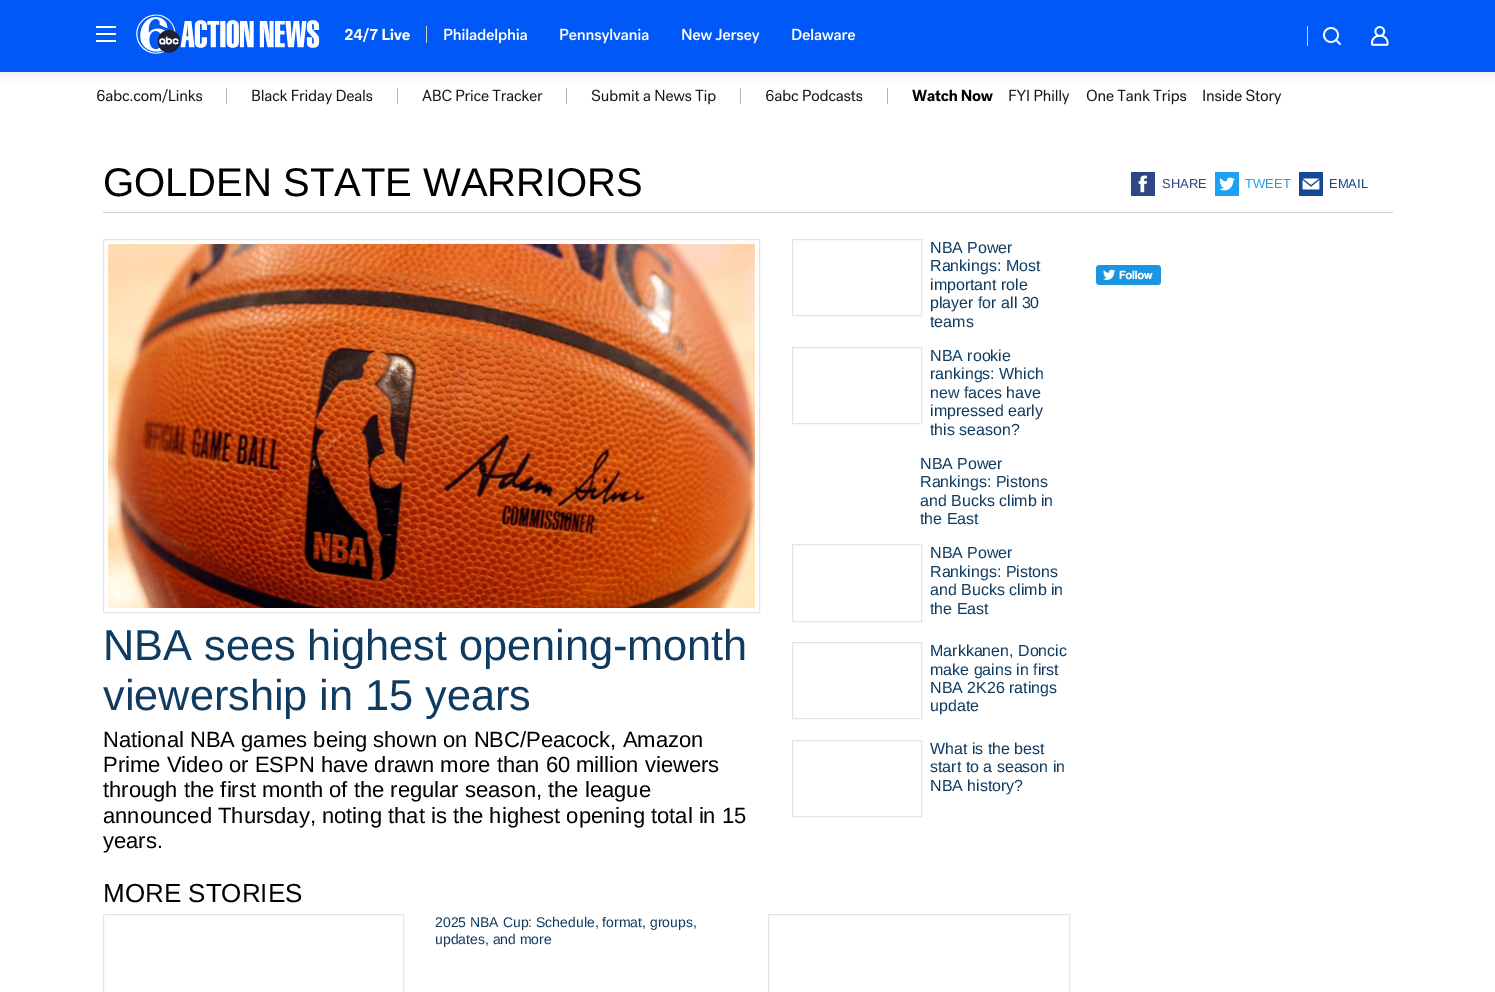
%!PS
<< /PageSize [1495 992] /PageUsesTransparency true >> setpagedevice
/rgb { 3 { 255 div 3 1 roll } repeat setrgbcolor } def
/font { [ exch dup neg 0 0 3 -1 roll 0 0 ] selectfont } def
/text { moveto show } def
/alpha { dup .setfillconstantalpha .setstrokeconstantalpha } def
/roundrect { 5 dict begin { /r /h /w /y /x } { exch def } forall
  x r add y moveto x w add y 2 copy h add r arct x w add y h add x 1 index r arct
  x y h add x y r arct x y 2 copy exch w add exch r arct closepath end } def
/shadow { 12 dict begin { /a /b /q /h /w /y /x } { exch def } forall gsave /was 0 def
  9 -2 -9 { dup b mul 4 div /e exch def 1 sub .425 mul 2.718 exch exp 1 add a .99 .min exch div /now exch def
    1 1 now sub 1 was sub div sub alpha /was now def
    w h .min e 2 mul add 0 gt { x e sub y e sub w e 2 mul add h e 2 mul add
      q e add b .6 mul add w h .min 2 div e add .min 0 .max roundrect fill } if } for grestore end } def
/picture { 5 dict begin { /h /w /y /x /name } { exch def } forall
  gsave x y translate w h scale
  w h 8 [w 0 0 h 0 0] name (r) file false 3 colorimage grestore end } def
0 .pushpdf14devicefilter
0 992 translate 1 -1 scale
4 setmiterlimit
255 255 255 rgb
0 0 1495 992 rectfill
(img_09.rgb) 97 88 106 15 picture
176 181 190 rgb
226 88 1 16 rectfill
(img_10.rgb) 252 89 121 16 picture
397 88 1 16 rectfill
(img_11.rgb) 422 89 121 13 picture
566 88 1 16 rectfill
(img_12.rgb) 591 89 125 16 picture
740 88 1 16 rectfill
(img_13.rgb) 766 89 97 13 picture
887 88 1 16 rectfill
(img_14.rgb) 912 89 81 13 picture
(img_15.rgb) 1009 89 61 16 picture
(img_16.rgb) 1086 89 101 16 picture
(img_17.rgb) 1203 89 79 16 picture
0 0 0 rgb
0 2 1495 72 0 5 0.08 shadow
0 88 246 rgb
0 0 1495 72 rectfill
255 255 255 rgb
96 33 20 2 1 roundrect fill
96 26 20 2 1 roundrect fill
96 40 20 2 1 roundrect fill
(img_01.rgb) 136 14 184 40 picture
(img_02.rgb) 344 27 66 15 picture
206 207 207 rgb
426 26 1 17 rectfill
(img_03.rgb) 444 28 83 16 picture
(img_04.rgb) 560 28 89 16 picture
(img_05.rgb) 682 28 78 16 picture
(img_06.rgb) 792 28 64 13 picture
1307 26 1 20 rectfill
(img_07.rgb) 1323 27 18 18 picture
(img_08.rgb) 1371 26 18 20 picture
204 204 204 rgb
103 212 1290 1 rectfill
45 72 133 rgb
1131 172 24 24 rectfill
(img_18.rgb) 1138 175 9 18 picture
29 161 242 rgb
1215 172 24 24 rectfill
(img_19.rgb) 1219 177 16 14 picture
20 71 149 rgb
1299 172 24 24 rectfill
(img_20.rgb) 1302 178 18 12 picture
228 228 228 rgb
103.5 239.5 656 373 rectstroke
(img_21.rgb) 108 244 647 364 picture
792.5 239.5 129 76 rectstroke
792.5 347.5 129 76 rectstroke
792.5 544.5 129 77 rectstroke
792.5 642.5 129 76 rectstroke
792.5 740.5 129 76 rectstroke
103.5 914.5 300 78 rectstroke
768.5 914.5 301 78 rectstroke
(img_22.rgb) 1096 265 65 20 picture
/LiberationSans-Regular 40 font
0 0 0 rgb
(GOLDEN STATE WARRIORS) 103 196 text
/LiberationSans-Regular 13 font
45 72 133 rgb
(SHARE) 1162 188 text
29 161 242 rgb
(TWEET) 1245 188 text
20 71 149 rgb
(EMAIL) 1329 188 text
/LiberationSans-Regular 43.25 font
16 59 97 rgb
(NBA sees highest opening-month) 103 660 text
(viewership in 15 years) 103 710 text
/LiberationSans-Regular 22 font
0 0 0 rgb
(National NBA games being shown on NBC/Peacock, Amazon) 103 747 text
(Prime Video or ESPN have drawn more than 60 million viewers) 103 772 text
(through the first month of the regular season, the league) 103 797 text
(announced Thursday, noting that is the highest opening total in 15) 103 823 text
(years.) 103 848 text
/LiberationSans-Regular 16 font
16 59 97 rgb
(NBA Power) 930 253 text
(Rankings: Most) 930 271 text
(important role) 930 290 text
(player for all 30) 930 308 text
(teams) 930 327 text
(NBA rookie) 930 361 text
(rankings: Which) 930 379 text
(new faces have) 930 398 text
(impressed early) 930 416 text
(this season?) 930 435 text
(NBA Power) 920 469 text
(Rankings: Pistons) 920 487 text
(and Bucks climb in) 920 506 text
(the East) 920 524 text
(NBA Power) 930 558 text
(Rankings: Pistons) 930 577 text
(and Bucks climb in) 930 595 text
(the East) 930 614 text
(Markkanen, Doncic) 930 656 text
(make gains in first) 930 675 text
(NBA 2K26 ratings) 930 693 text
(update) 930 711 text
(What is the best) 930 754 text
(start to a season in) 930 772 text
(NBA history?) 930 791 text
/LiberationSans-Regular 26 font
0 0 0 rgb
(MORE STORIES) 103 902 text
/LiberationSans-Regular 14 font
16 59 97 rgb
(2025 NBA Cup: Schedule, format, groups,) 435 927 text
(updates, and more) 435 944 text
.poppdf14devicefilter showpage
